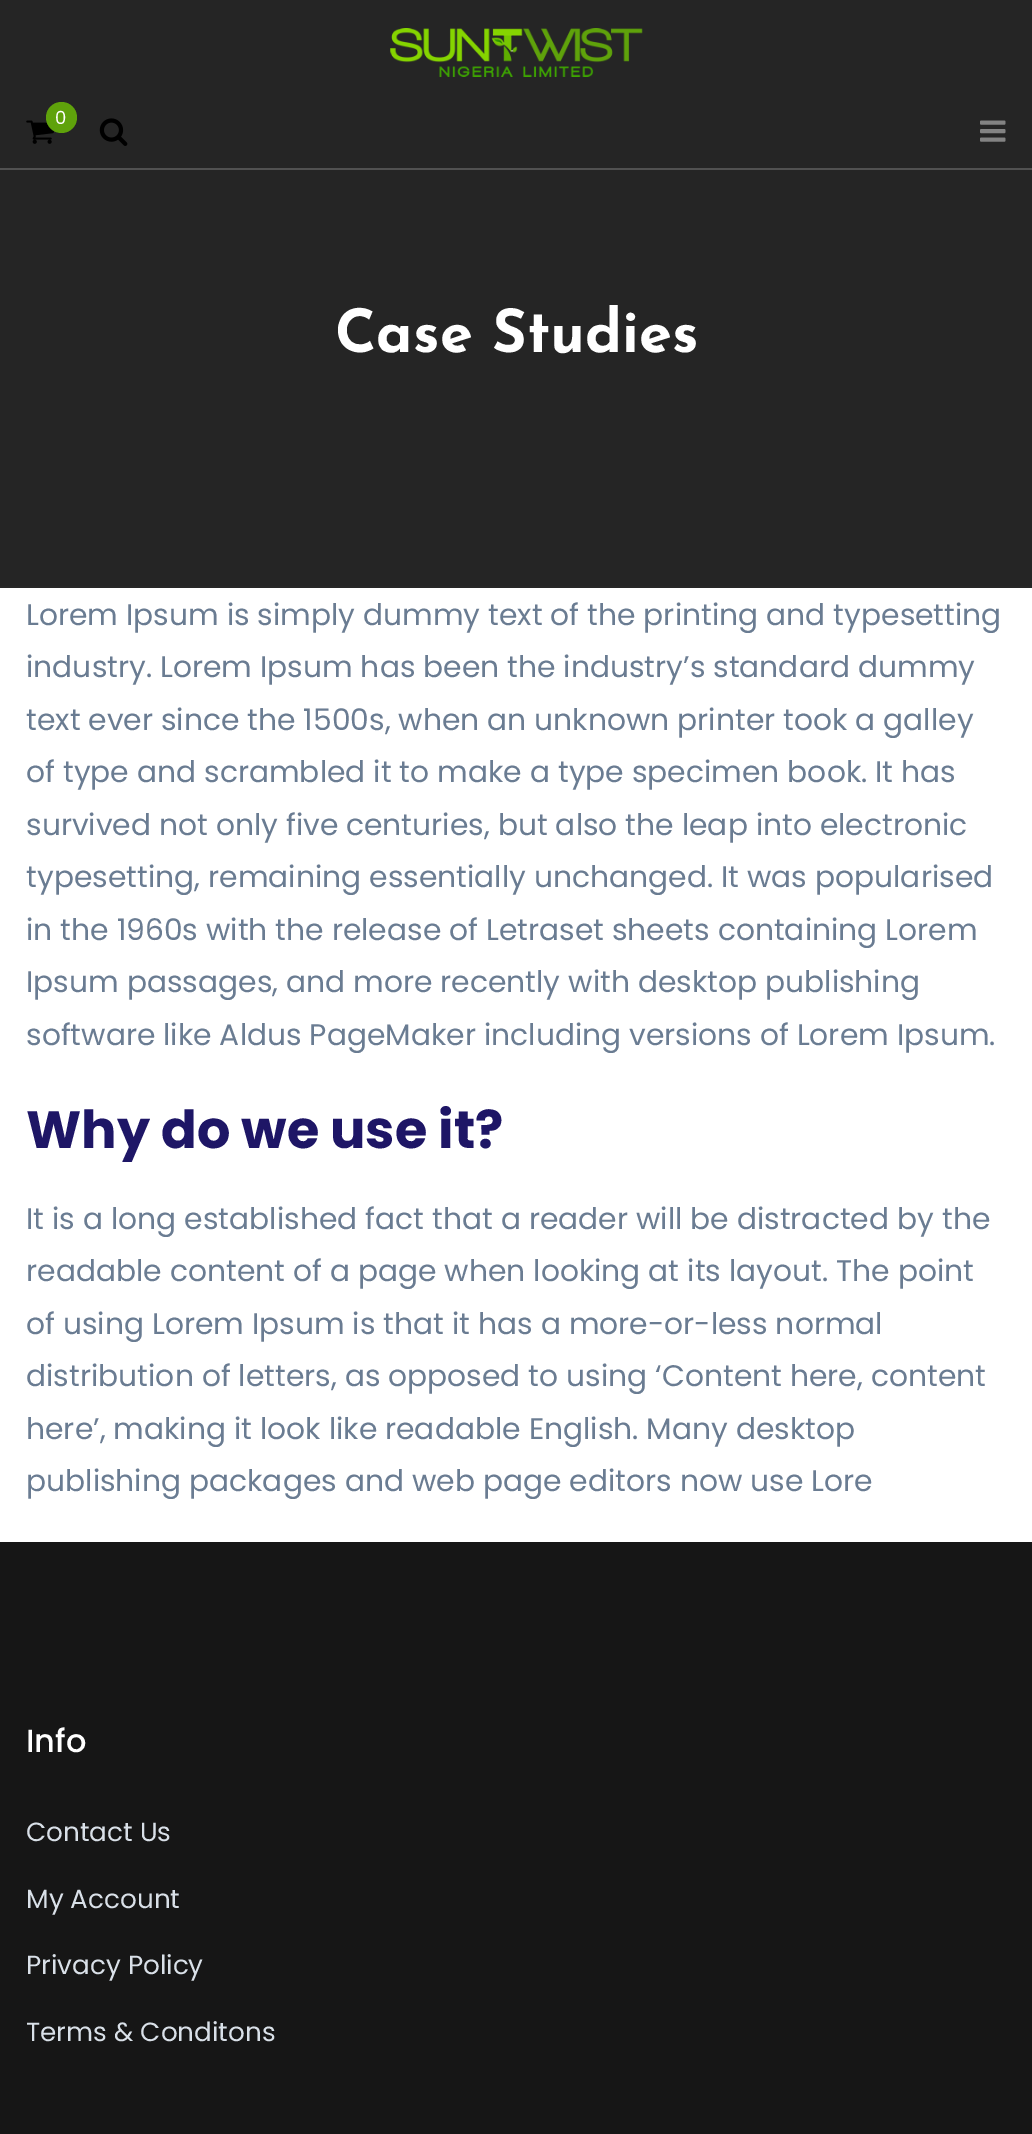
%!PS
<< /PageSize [1032 2134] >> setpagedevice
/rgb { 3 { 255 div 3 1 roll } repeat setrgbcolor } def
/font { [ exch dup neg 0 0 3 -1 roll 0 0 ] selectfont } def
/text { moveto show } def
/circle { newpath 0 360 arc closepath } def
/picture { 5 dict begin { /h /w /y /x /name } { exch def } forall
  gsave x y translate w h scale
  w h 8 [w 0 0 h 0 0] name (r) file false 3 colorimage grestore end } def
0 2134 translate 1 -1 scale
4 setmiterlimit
255 255 255 rgb
0 0 1032 2134 rectfill
37 37 37 rgb
0 0 1032 586 rectfill
81 81 81 rgb
0 168 1032 2 rectfill
(img_01.rgb) 390 28 253 49 picture
(img_02.rgb) 26 120 28 24 picture
95 162 11 rgb
61.5 117.5 15.5 circle fill
(img_03.rgb) 99 118 29 28 picture
(img_04.rgb) 980 120 26 22 picture
39 39 39 rgb
0 586 1032 2 rectfill
22 22 22 rgb
0 1542 1032 592 rectfill
/Poppins-Regular 18 font
255 255 255 rgb
(0) 55 124 text
/JosefinSans-Bold 59.5 font
(Case Studies) 335 352 text
/Poppins-Regular 29.75 font
106 124 146 rgb
(Lorem Ipsum is simply dummy text of the printing and typesetting) 26 625 text
(industry. Lorem Ipsum has been the industry’s standard dummy) 26 677 text
(text ever since the 1500s, when an unknown printer took a galley) 26 730 text
(of type and scrambled it to make a type specimen book. It has) 26 782 text
(survived not only five centuries, but also the leap into electronic) 26 835 text
(typesetting, remaining essentially unchanged. It was popularised) 26 887 text
(in the 1960s with the release of Letraset sheets containing Lorem) 26 940 text
(Ipsum passages, and more recently with desktop publishing) 26 992 text
(software like Aldus PageMaker including versions of Lorem Ipsum.) 26 1045 text
/Poppins-Bold 52.5 font
30 22 102 rgb
(Why do we use it?) 26 1148 text
/Poppins-Regular 29.75 font
106 124 146 rgb
(It is a long established fact that a reader will be distracted by the) 26 1229 text
(readable content of a page when looking at its layout. The point) 26 1281 text
(of using Lorem Ipsum is that it has a more-or-less normal) 26 1334 text
(distribution of letters, as opposed to using ‘Content here, content) 26 1386 text
(here’, making it look like readable English. Many desktop) 26 1439 text
(publishing packages and web page editors now use Lore) 26 1491 text
/Poppins-Medium 32 font
255 255 255 rgb
(Info) 26 1752 text
/Poppins-Regular 26.25 font
217 224 232 rgb
(Contact Us) 26 1841 text
(My Account) 26 1908 text
(Privacy Policy) 26 1974 text
(Terms & Conditons) 26 2041 text
showpage
